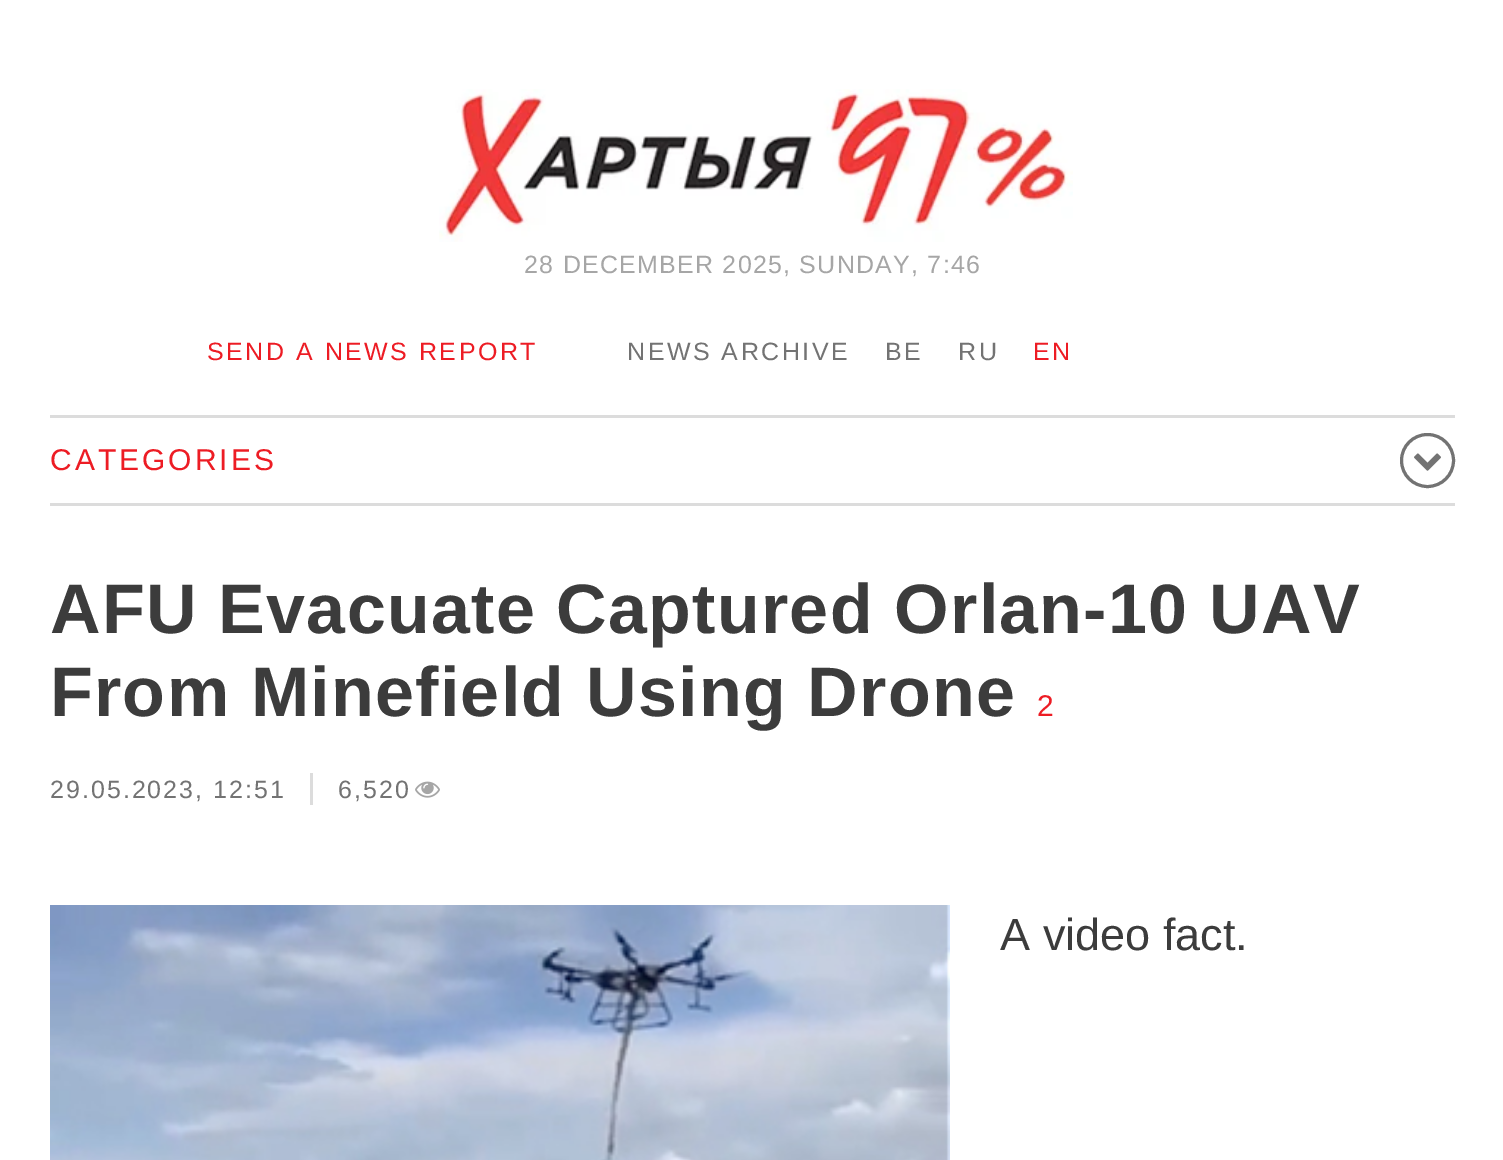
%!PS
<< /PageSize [1503 1160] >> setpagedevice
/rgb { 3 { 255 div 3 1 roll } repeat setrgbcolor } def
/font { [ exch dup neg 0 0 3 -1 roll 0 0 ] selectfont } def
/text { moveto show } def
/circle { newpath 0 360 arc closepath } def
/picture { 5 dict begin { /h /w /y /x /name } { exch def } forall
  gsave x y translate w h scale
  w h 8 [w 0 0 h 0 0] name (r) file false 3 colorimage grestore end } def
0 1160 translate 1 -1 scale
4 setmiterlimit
255 255 255 rgb
0 0 1503 1160 rectfill
(img_01.rgb) 439 89 634 153 picture
220 220 220 rgb
50 415 1405 3 rectfill
50 503 1405 3 rectfill
115 115 115 rgb
3 setlinewidth
1427.5 460.5 26 circle stroke
(img_02.rgb) 1414 453 27 18 picture
220 220 220 rgb
310 773 3 32 rectfill
(img_03.rgb) 415 781 25 17 picture
(img_04.rgb) 50 905 900 255 picture
/LiberationSans-Regular 25 font
166 166 166 rgb
524 273 moveto 1.25 0 (28 DECEMBER 2025, SUNDAY, 7:46) ashow
237 28 36 rgb
207 360 moveto 2.5 0 (SEND A NEWS REPORT) ashow
115 115 115 rgb
627 360 moveto 2.5 0 (NEWS ARCHIVE) ashow
885 360 moveto 2.5 0 (BE) ashow
958 360 moveto 2.5 0 (RU) ashow
237 28 36 rgb
1033 360 moveto 2.5 0 (EN) ashow
/LiberationSans-Regular 30 font
50 470 moveto 3 0 (CATEGORIES) ashow
/LiberationSans-Bold 70 font
60 60 60 rgb
50 633 moveto 1.25 0 (AFU Evacuate Captured Orlan-10 UAV) ashow
50 716 moveto 1.25 0 (From Minefield Using Drone) ashow
/LiberationSans-Regular 30 font
237 28 36 rgb
(2) 1037 716 text
/LiberationSans-Regular 25 font
115 115 115 rgb
50 798 moveto 2 0 (29.05.2023, 12:51) ashow
338 798 moveto 2 0 (6,520) ashow
/LiberationSans-Regular 45 font
60 60 60 rgb
(A video fact.) 1000 950 text
showpage
